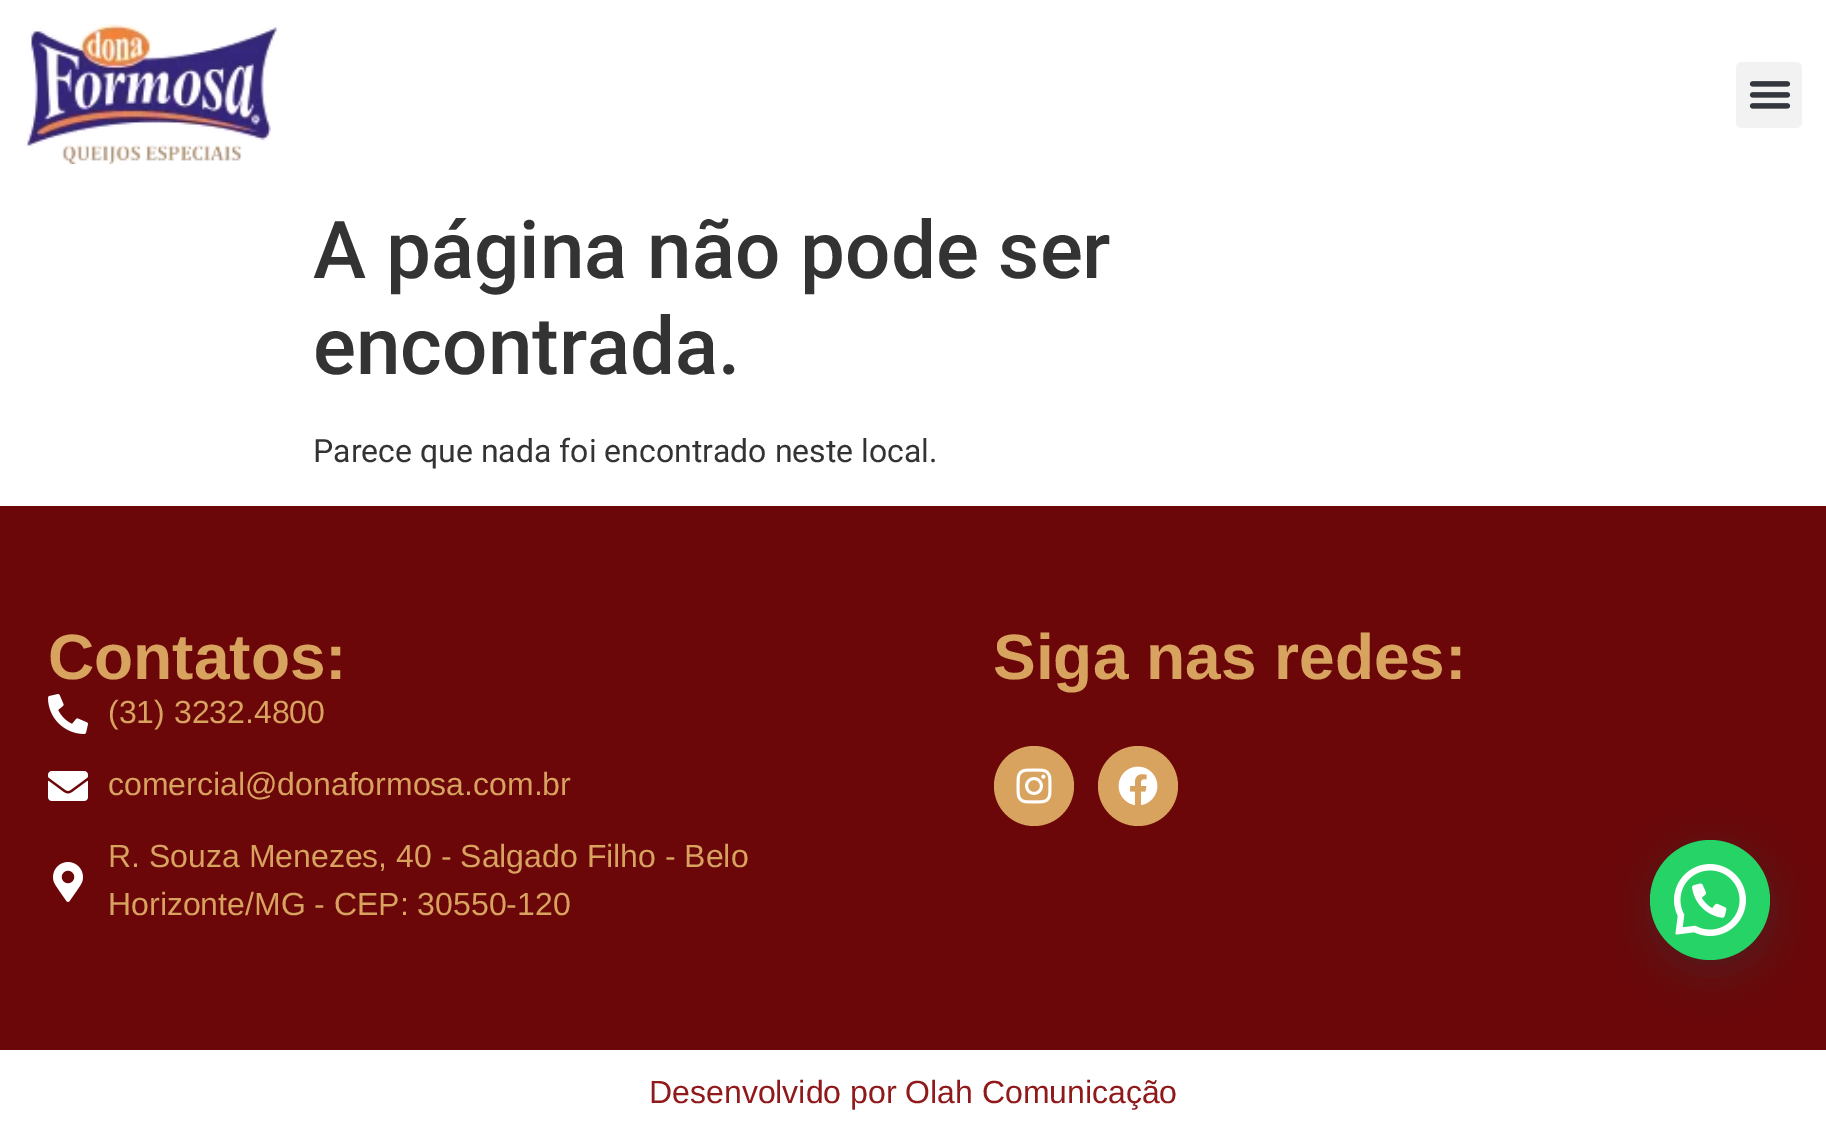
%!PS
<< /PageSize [1826 1130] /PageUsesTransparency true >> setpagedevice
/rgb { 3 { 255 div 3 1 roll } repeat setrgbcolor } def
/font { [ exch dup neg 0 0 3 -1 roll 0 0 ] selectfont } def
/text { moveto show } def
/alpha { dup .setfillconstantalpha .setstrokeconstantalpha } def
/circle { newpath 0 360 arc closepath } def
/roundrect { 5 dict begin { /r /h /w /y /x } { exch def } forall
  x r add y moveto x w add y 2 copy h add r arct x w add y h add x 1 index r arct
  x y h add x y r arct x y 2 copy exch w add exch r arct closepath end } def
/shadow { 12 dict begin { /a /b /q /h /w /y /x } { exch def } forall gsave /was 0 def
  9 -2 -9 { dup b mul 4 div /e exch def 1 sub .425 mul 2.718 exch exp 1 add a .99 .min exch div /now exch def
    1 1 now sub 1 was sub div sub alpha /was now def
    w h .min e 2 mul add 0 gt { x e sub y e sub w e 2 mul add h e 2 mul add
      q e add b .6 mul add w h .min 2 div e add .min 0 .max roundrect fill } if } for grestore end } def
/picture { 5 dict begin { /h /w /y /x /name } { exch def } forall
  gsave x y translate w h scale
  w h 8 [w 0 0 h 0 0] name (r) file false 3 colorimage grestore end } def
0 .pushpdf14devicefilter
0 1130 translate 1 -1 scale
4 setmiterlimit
255 255 255 rgb
0 0 1826 1130 rectfill
(img_01.rgb) 24 24 256 140 picture
242 242 242 rgb
1736 62 66 66 6 roundrect fill
(img_02.rgb) 1749 81 42 28 picture
107 6 9 rgb
0 506 1826 544 rectfill
(img_03.rgb) 48 694 40 40 picture
(img_04.rgb) 48 771 40 30 picture
(img_05.rgb) 53 862 30 40 picture
216 162 95 rgb
1034 786 40 circle fill
(img_06.rgb) 1016 768 36 36 picture
1138 786 40 circle fill
(img_07.rgb) 1118 766 40 40 picture
7 94 84 rgb
1652 852 120 120 60 24 0.24 shadow
37 211 102 rgb
1710 900 60 circle fill
(img_08.rgb) 1674 864 72 72 picture
/Roboto-Medium 80 font
51 51 51 rgb
(A página não pode ser) 313 278 text
(encontrada.) 313 374 text
/Roboto-Regular 32 font
(Parece que nada foi encontrado neste local.) 313 462 text
/LiberationSans-Bold 64 font
216 162 95 rgb
(Contatos:) 48 679 text
/LiberationSans-Regular 32 font
(\(31\) 3232.4800) 108 723 text
(comercial@donaformosa.com.br) 108 795 text
(R. Souza Menezes, 40 - Salgado Filho - Belo) 108 867 text
(Horizonte/MG - CEP: 30550-120) 108 915 text
/LiberationSans-Bold 64 font
(Siga nas redes:) 993 679 text
/LiberationSans-Regular 32 font
144 25 27 rgb
(Desenvolvido por Olah Comunicação) 649 1103 text
.poppdf14devicefilter showpage
